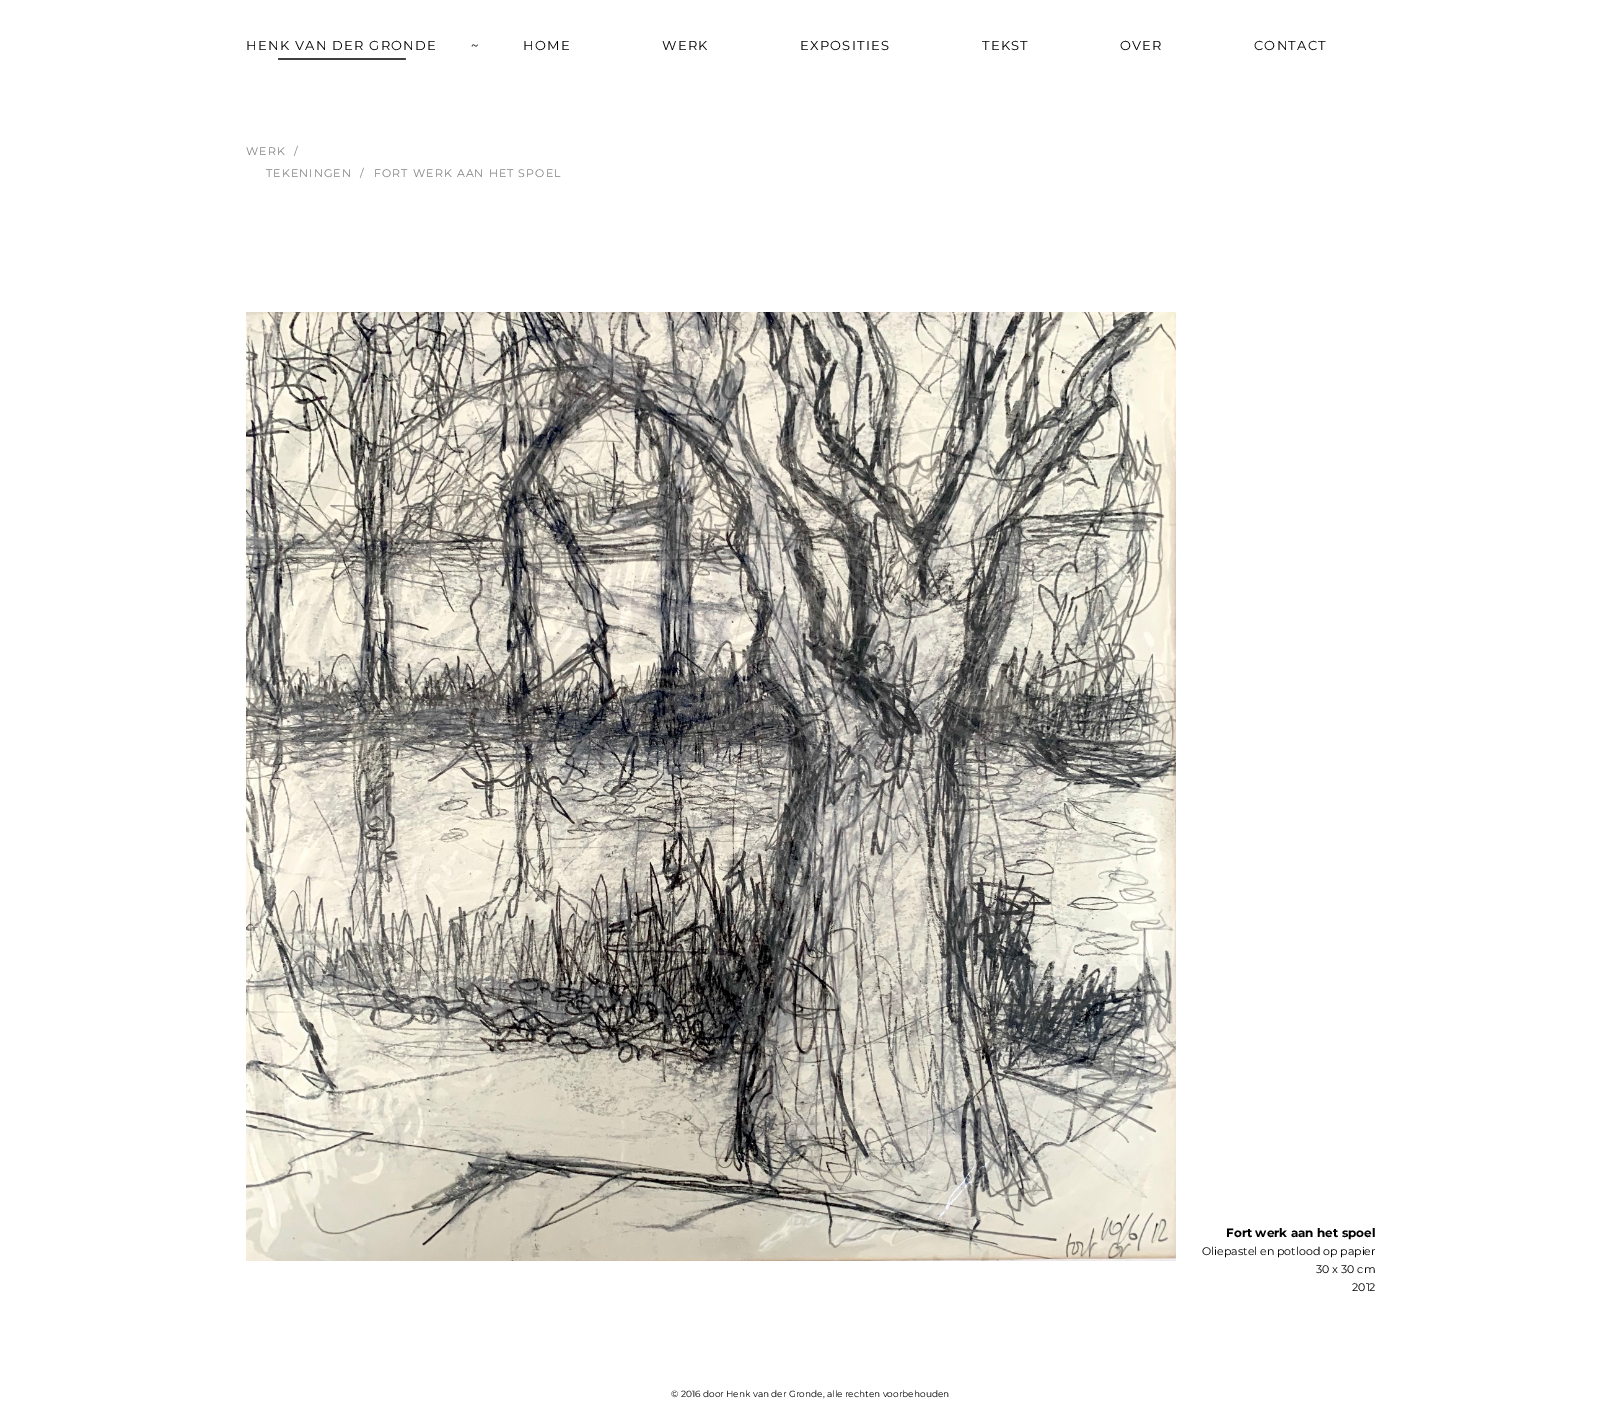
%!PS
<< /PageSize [1621 1408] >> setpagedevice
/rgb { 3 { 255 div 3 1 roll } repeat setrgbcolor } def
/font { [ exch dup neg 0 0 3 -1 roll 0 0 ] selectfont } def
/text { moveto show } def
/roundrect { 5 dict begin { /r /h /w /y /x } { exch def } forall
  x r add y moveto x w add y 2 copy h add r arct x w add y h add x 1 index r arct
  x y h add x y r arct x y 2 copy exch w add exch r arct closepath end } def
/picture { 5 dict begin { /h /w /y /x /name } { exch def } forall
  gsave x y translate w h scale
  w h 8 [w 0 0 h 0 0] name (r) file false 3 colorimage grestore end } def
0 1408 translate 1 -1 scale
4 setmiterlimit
255 255 255 rgb
0 0 1621 1408 rectfill
64 64 64 rgb
278 58 128 2 1 roundrect fill
(img_01.rgb) 246 312 930 949 picture
/Montserrat-Regular 13 font
0 0 0 rgb
246 50 moveto 1.25 0 (HENK VAN DER GRONDE) ashow
471 50 moveto 1.25 0 (~) ashow
523 50 moveto 1.25 0 (HOME) ashow
662 50 moveto 1.25 0 (WERK) ashow
800 50 moveto 1.25 0 (EXPOSITIES) ashow
982 50 moveto 1.25 0 (TEKST) ashow
1120 50 moveto 1.25 0 (OVER) ashow
1254 50 moveto 1.25 0 (CONTACT) ashow
/Montserrat-Regular 11 font
128 128 128 rgb
246 155 moveto 1.1 0 (WERK) ashow
294 155 moveto 1.1 0 (/) ashow
266 177 moveto 1.1 0 (TEKENINGEN) ashow
360 177 moveto 1.1 0 (/) ashow
374 177 moveto 1.1 0 (FORT WERK AAN HET SPOEL) ashow
/Montserrat-Bold 12 font
0 0 0 rgb
(Fort werk aan het spoel) 1226 1237 text
/Montserrat-Regular 11 font
(Oliepastel en potlood op papier) 1202 1255 text
(30 x 30 cm) 1316 1273 text
(2012) 1352 1291 text
/Montserrat-Regular 9 font
(© 2016 door Henk van der Gronde, alle rechten voorbehouden) 671 1397 text
showpage
